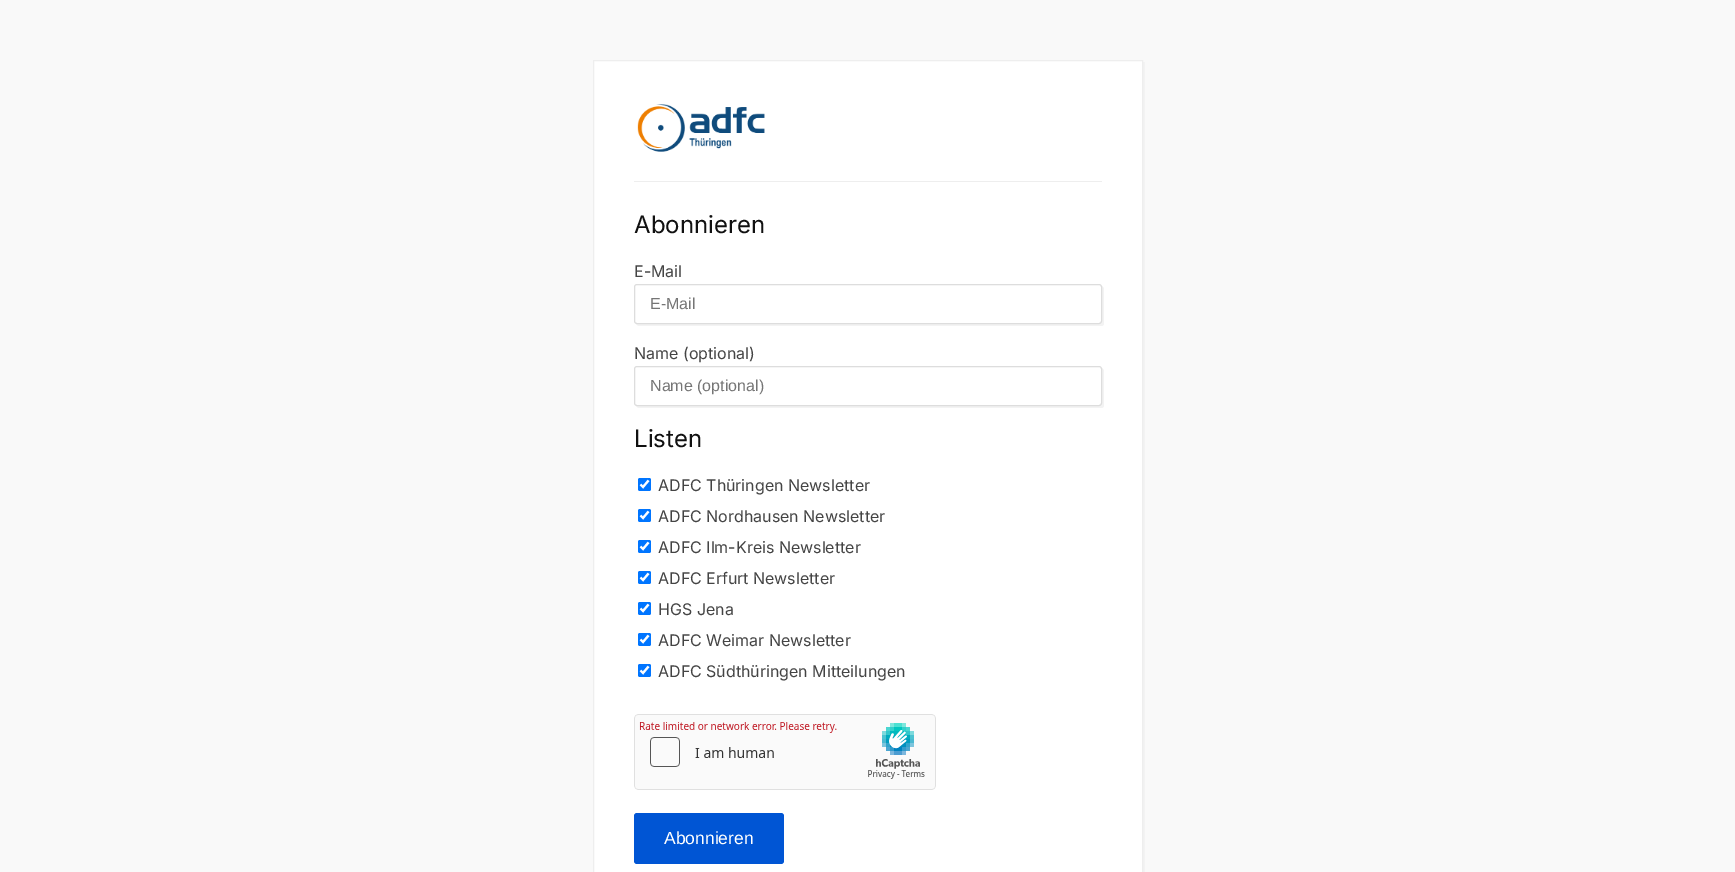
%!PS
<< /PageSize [1735 872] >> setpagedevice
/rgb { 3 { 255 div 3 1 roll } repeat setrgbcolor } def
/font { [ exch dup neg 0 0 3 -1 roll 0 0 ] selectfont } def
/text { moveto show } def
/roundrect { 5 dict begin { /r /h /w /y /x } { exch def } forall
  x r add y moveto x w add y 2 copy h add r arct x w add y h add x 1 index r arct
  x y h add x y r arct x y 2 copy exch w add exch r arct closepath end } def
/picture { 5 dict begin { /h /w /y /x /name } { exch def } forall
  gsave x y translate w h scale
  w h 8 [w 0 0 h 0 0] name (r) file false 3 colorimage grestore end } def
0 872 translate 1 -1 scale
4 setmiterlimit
249 249 249 rgb
0 0 1735 872 rectfill
243 243 243 rgb
595 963 moveto 0 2 rlineto 550 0 rlineto 0 -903 rlineto -2 0 rlineto 0 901 rlineto closepath fill
255 255 255 rgb
593.5 60.5 moveto 549 0 rlineto 0 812 rlineto -549 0 rlineto closepath gsave fill grestore
238 238 238 rgb
stroke
634 181 468 1 rectfill
(img_01.rgb) 637 104 128 48 picture
243 243 243 rgb
636 324 moveto 1 1 2 2 3 2 rcurveto 462 0 rlineto 2 0 3 -1 3 -3 rcurveto 0 -34 rlineto 0 -1 -1 -2 -2 -3 rcurveto 0 29 rlineto 0 2 1 9 -3 9 rcurveto closepath fill
255 255 255 rgb
634.5 284.5 467 39 2.5 roundrect gsave fill grestore
221 221 221 rgb
stroke
243 243 243 rgb
636 406 moveto 1 1 2 2 3 2 rcurveto 462 0 rlineto 2 0 3 -1 3 -3 rcurveto 0 -34 rlineto 0 -1 -1 -2 -2 -3 rcurveto 0 29 rlineto 0 2 1 9 -3 9 rcurveto closepath fill
255 255 255 rgb
634.5 366.5 467 39 2.5 roundrect gsave fill grestore
221 221 221 rgb
stroke
0 117 255 rgb
638 478 13 13 2 roundrect fill
255 255 255 rgb
2.1 setlinewidth
640.5 484.5 moveto 2.5 2.5 rlineto 5.5 -6.5 rlineto stroke
0 117 255 rgb
638 509 13 13 2 roundrect fill
255 255 255 rgb
640.5 515.5 moveto 2.5 2.5 rlineto 5.5 -6.5 rlineto stroke
0 117 255 rgb
638 540 13 13 2 roundrect fill
255 255 255 rgb
640.5 546.5 moveto 2.5 2.5 rlineto 5.5 -6.5 rlineto stroke
0 117 255 rgb
638 571 13 13 2 roundrect fill
255 255 255 rgb
640.5 577.5 moveto 2.5 2.5 rlineto 5.5 -6.5 rlineto stroke
0 117 255 rgb
638 602 13 13 2 roundrect fill
255 255 255 rgb
640.5 608.5 moveto 2.5 2.5 rlineto 5.5 -6.5 rlineto stroke
0 117 255 rgb
638 633 13 13 2 roundrect fill
255 255 255 rgb
640.5 639.5 moveto 2.5 2.5 rlineto 5.5 -6.5 rlineto stroke
0 117 255 rgb
638 664 13 13 2 roundrect fill
255 255 255 rgb
640.5 670.5 moveto 2.5 2.5 rlineto 5.5 -6.5 rlineto stroke
(img_02.rgb) 634 714 302 76 picture
0 85 212 rgb
634 813 150 51 3 roundrect fill
/Inter-Regular 24 font
17 17 17 rgb
(Abonnieren) 634 233 text
/Inter-Regular 16 font
68 68 68 rgb
(E-Mail) 634 277 text
/LiberationSans-Regular 16 font
117 117 117 rgb
(E-Mail) 650 309 text
/Inter-Regular 16 font
68 68 68 rgb
(Name \(optional\)) 634 359 text
/LiberationSans-Regular 16 font
117 117 117 rgb
(Name \(optional\)) 650 391 text
/Inter-Regular 24 font
17 17 17 rgb
(Listen) 634 447 text
/Inter-Regular 16 font
68 68 68 rgb
(ADFC Thüringen Newsletter) 658 491 text
(ADFC Nordhausen Newsletter) 658 522 text
(ADFC Ilm-Kreis Newsletter) 658 553 text
(ADFC Erfurt Newsletter) 658 584 text
(HGS Jena) 658 615 text
(ADFC Weimar Newsletter) 658 646 text
(ADFC Südthüringen Mitteilungen) 658 677 text
/LiberationSans-Regular 17.5 font
255 255 255 rgb
(Abonnieren) 664 844 text
showpage
